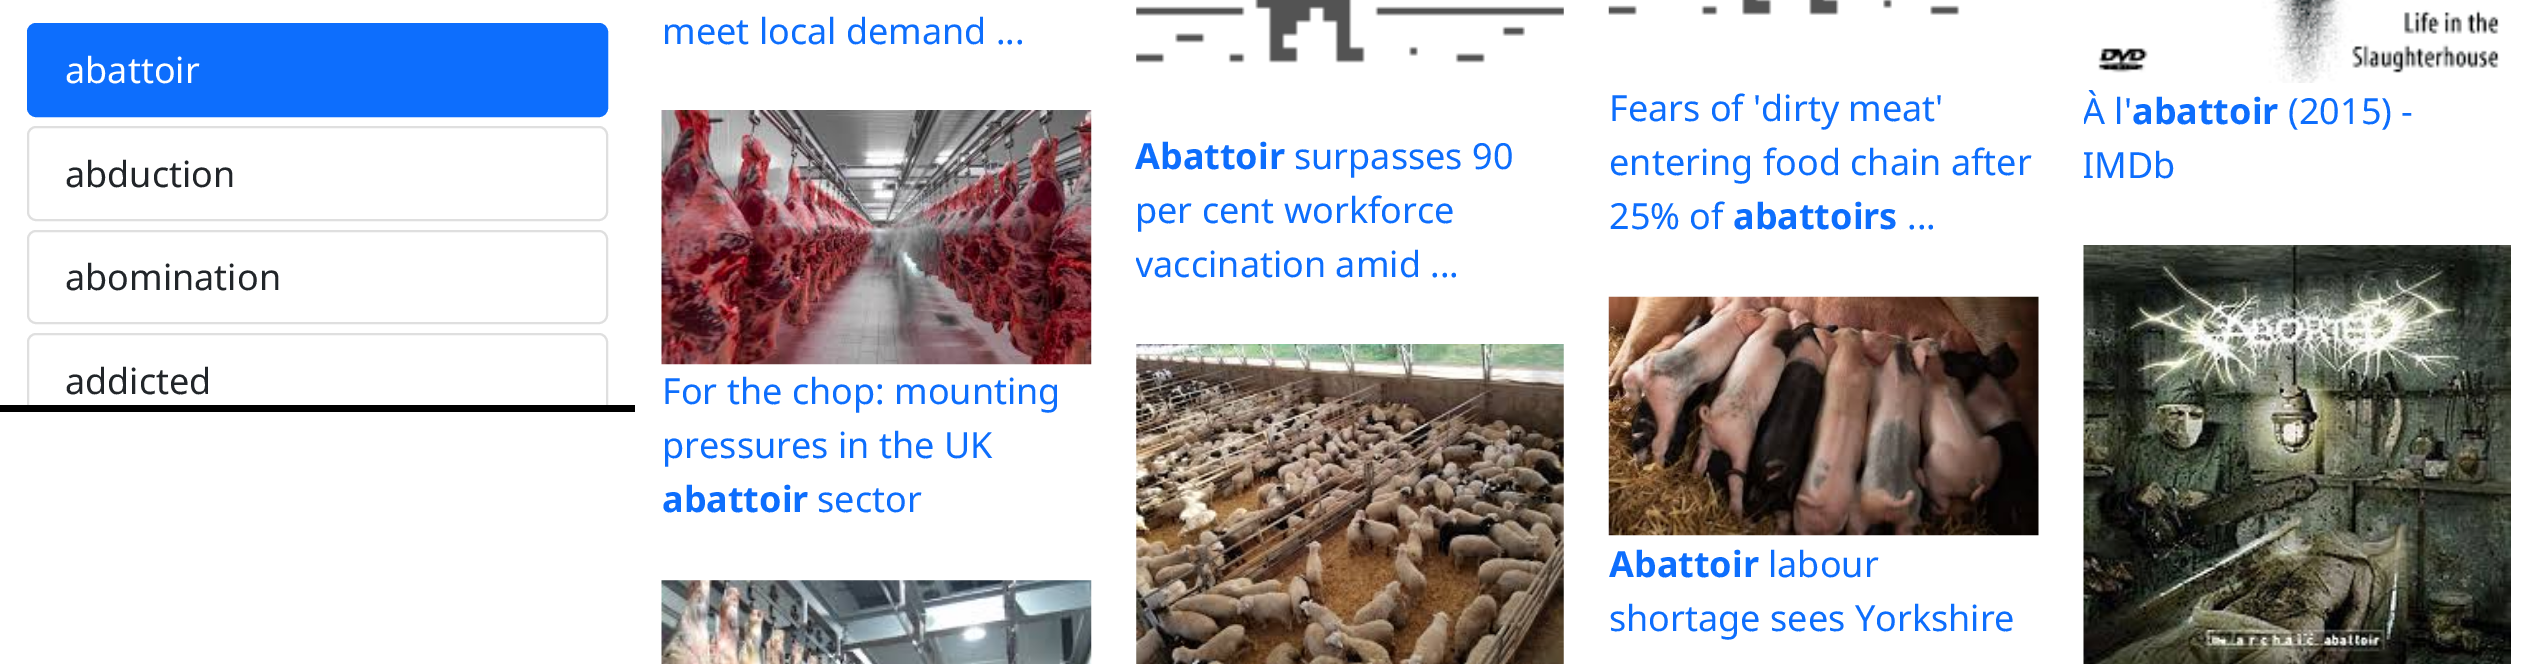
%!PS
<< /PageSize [2538 664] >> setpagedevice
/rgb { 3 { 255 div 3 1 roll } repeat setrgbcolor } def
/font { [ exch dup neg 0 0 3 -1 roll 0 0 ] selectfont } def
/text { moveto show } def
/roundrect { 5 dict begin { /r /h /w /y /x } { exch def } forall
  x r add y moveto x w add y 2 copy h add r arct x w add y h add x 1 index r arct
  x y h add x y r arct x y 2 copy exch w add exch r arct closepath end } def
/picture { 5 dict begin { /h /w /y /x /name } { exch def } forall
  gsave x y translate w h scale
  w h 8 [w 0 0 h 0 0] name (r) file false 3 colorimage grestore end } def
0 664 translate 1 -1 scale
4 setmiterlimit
255 255 255 rgb
0 0 2538 664 rectfill
0 0 0 rgb
0 405 635 7 rectfill
13 110 253 rgb
28 24 579 92 8 roundrect gsave fill grestore
2 setlinewidth
stroke
223 223 223 rgb
28 127 579 93 8 roundrect stroke
28 231 579 92 8 roundrect stroke
gsave
0 23 635 382 rectclip
28 334 579 93 8 roundrect stroke
grestore
(img_01.rgb) 1136 0 428 63 picture
(img_02.rgb) 1608 0 352 15 picture
(img_03.rgb) 2098 0 402 83 picture
(img_04.rgb) 661 110 431 255 picture
(img_05.rgb) 1136 344 428 320 picture
(img_06.rgb) 2083 245 428 419 picture
(img_07.rgb) 661 580 431 84 picture
(img_08.rgb) 1608 296 431 240 picture
/NotoSans-Regular 36 font
255 255 255 rgb
(abattoir) 65 83 text
33 37 41 rgb
(abduction) 65 187 text
(abomination) 65 290 text
(addicted) 65 394 text
13 110 253 rgb
(meet local demand ...) 662 44 text
/NotoSans-Bold 36 font
(Abattoir) 1135 169 text
/NotoSans-Regular 36 font
(surpasses 90) 1294 169 text
(per cent workforce) 1135 223 text
gsave
1136 128 428 162 rectclip
(vaccination amid ...) 1135 277 text
grestore
(Fears of 'dirty meat') 1609 121 text
(entering food chain after) 1609 175 text
(25% of) 1609 229 text
/NotoSans-Bold 36 font
(abattoirs) 1733 229 text
/NotoSans-Regular 36 font
(...) 1907 229 text
gsave
2084 83 427 108 rectclip
(À l') 2082 124 text
grestore
/NotoSans-Bold 36 font
(abattoir) 2132 124 text
/NotoSans-Regular 36 font
(\(2015\) -) 2288 124 text
gsave
2084 83 427 108 rectclip
(IMDb) 2082 178 text
grestore
(For the chop: mounting) 662 404 text
(pressures in the UK) 662 458 text
/NotoSans-Bold 36 font
(abattoir) 662 512 text
/NotoSans-Regular 36 font
(sector) 817 512 text
/NotoSans-Bold 36 font
(Abattoir) 1609 577 text
/NotoSans-Regular 36 font
(labour) 1768 577 text
(shortage sees Yorkshire) 1609 631 text
showpage
